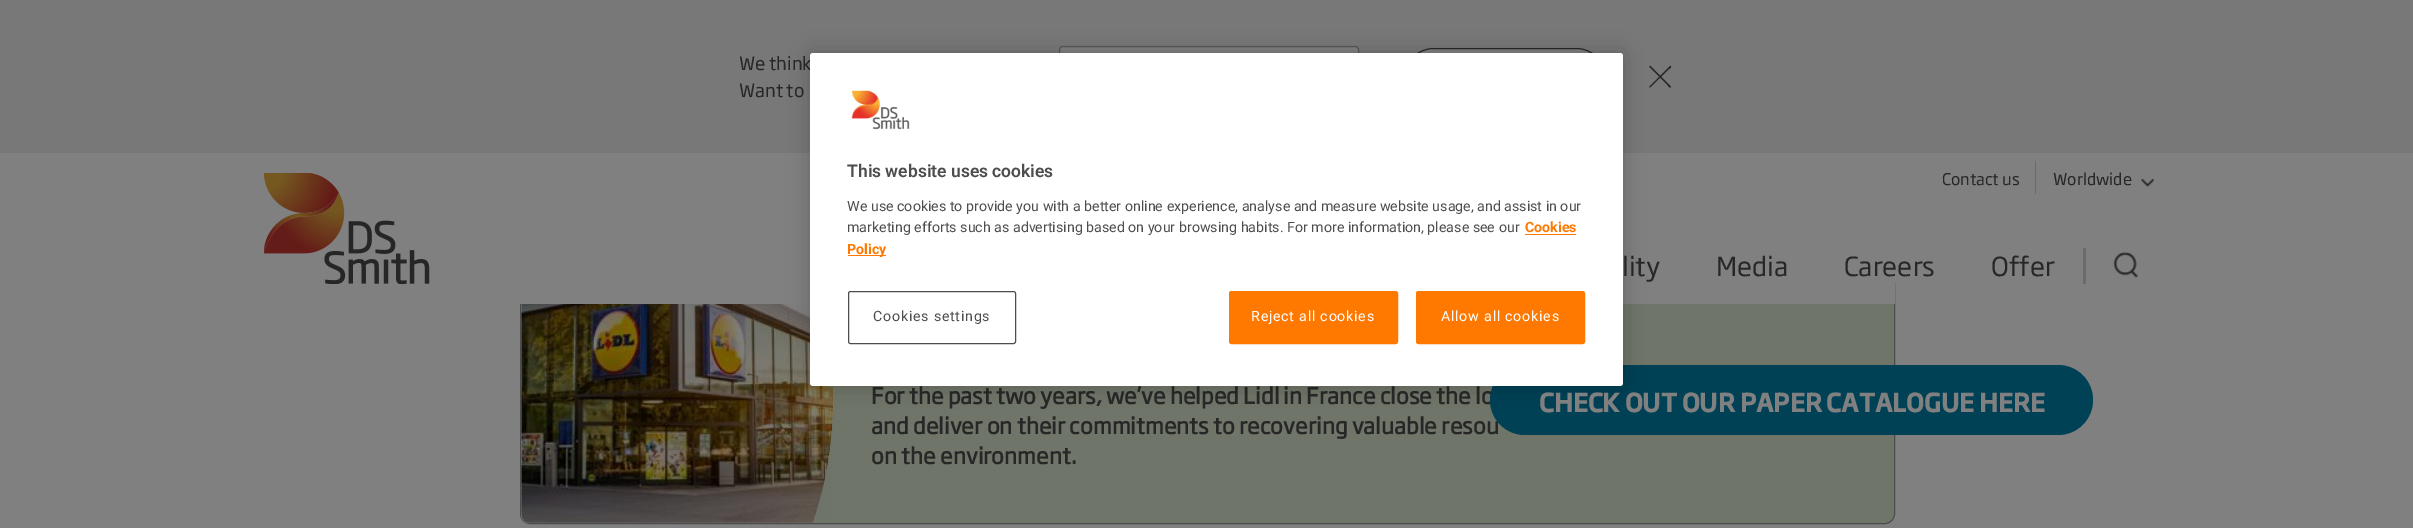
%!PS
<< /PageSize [2413 528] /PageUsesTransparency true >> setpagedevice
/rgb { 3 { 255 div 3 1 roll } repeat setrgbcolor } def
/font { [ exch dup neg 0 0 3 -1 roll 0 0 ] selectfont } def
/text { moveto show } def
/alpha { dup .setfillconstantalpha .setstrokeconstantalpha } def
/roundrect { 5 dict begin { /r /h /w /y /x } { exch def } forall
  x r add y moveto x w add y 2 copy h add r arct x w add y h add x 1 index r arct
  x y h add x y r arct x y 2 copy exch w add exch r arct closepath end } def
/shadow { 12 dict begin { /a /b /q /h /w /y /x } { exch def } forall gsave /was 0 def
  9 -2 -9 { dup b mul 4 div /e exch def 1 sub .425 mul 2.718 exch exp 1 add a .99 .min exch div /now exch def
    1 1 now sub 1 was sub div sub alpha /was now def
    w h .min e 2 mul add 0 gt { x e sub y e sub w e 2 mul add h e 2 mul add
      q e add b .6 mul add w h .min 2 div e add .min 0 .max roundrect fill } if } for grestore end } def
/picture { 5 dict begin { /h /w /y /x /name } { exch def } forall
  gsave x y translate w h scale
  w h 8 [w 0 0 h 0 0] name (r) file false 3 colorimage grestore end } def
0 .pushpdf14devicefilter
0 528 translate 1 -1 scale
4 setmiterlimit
128 128 128 rgb
0 0 2413 528 rectfill
111 117 104 rgb
520.5 274.5 1374 249 9.5 roundrect gsave fill grestore
76 76 76 rgb
stroke
128 128 128 rgb
530 275 moveto 283 0 rlineto 27 80 27 168 0 248 rcurveto -283 0 rlineto -5 0 -9 -4 -9 -9 rcurveto 0 -230 rlineto 0 -5 4 -9 9 -9 rcurveto closepath fill
520 274 1375 30 rectfill
120 120 120 rgb
0 0 2413 153 rectfill
128 128 128 rgb
1059.5 46.5 299 59 3.5 roundrect gsave fill grestore
89 88 88 rgb
stroke
128 128 128 rgb
1405.5 48.5 199 56 28 roundrect gsave fill grestore
39 39 39 rgb
stroke
1650.5 66 moveto 20.5 20.5 rlineto 0 0 0 1 -0.5 1 rcurveto -2 0 -2.5 -2.5 -4 -3.5 rcurveto -17 -17 rlineto -0.5 -0.5 0.5 -1.5 1 -1 rcurveto closepath fill
1649.5 86.5 moveto 20.5 -20.5 rlineto 0.5 -0.5 1 0 1 0.5 rcurveto 0.5 1.5 -2.5 2.5 -3.5 4 rcurveto -17 16.5 rlineto -0.5 1 -1.5 0 -1 -0.5 rcurveto closepath fill
(img_01.rgb) 264 173 166 111 picture
107 107 107 rgb
2035 161 1 33 rectfill
(img_02.rgb) 2141 178 13 9 picture
2083 248 3 36 rectfill
(img_03.rgb) 2113 252 25 26 picture
(img_05.rgb) 521 304 313 219 picture
/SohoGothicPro-Regular 18 font
39 39 39 rgb
(We think) 739 70 text
(Want to) 739 97 text
/SohoGothicPro-Regular 16 font
(Contact us) 1942 185 text
(Worldwide) 2053 185 text
/SohoGothicPro-Regular 26 font
(lity) 1622 276 text
(Media) 1716 276 text
(Careers) 1844 276 text
(Offer) 1991 276 text
/SohoGothicPro-Bold 22 font
(For the past two years, we’ve helped Lidl in France close the lo) 871 404 text
(and deliver on their commitments to recovering valuable resou) 871 434 text
(on the environment.) 871 464 text
0 65 86 rgb
1490 365 603 70 35 roundrect fill
0 0 0 rgb
810 53 813 333 3 11 0.2 shadow
255 255 255 rgb
810 53 813 333 3 roundrect fill
77 77 77 rgb
848.5 291.5 167 52 2 roundrect stroke
/Roboto-Regular 14.23 font
873 321 moveto 0.75 0 (Cookies settings) ashow
255 121 0 rgb
1416.5 291.5 168 52 2 roundrect gsave fill grestore
stroke
255 255 255 rgb
1441 321 moveto 0.75 0 (Allow all cookies) ashow
255 121 0 rgb
1229.5 291.5 168 52 2 roundrect gsave fill grestore
stroke
255 255 255 rgb
1251 321 moveto 0.75 0 (Reject all cookies) ashow
(img_04.rgb) 851 90 59 40 picture
255 121 0 rgb
848 255 38 1 rectfill
/Roboto-Bold 14.23 font
(Policy) 847 254 text
(Cookies) 1525 232 text
1525 234 51 1 rectfill
/Roboto-Regular 14.23 font
77 77 77 rgb
(marketing efforts such as advertising based on your browsing habits. For more information, please see our) 847 232 text
(We use cookies to provide you with a better online experience, analyse and measure website usage, and assist in our) 847 211 text
/Roboto-SemiBold 17.5 font
(This website uses cookies) 847 177 text
/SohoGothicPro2-Bold 25 font
128 128 128 rgb
(CHECK OUT OUR PAPER CATALOGUE HERE) 1539 412 text
.poppdf14devicefilter showpage
